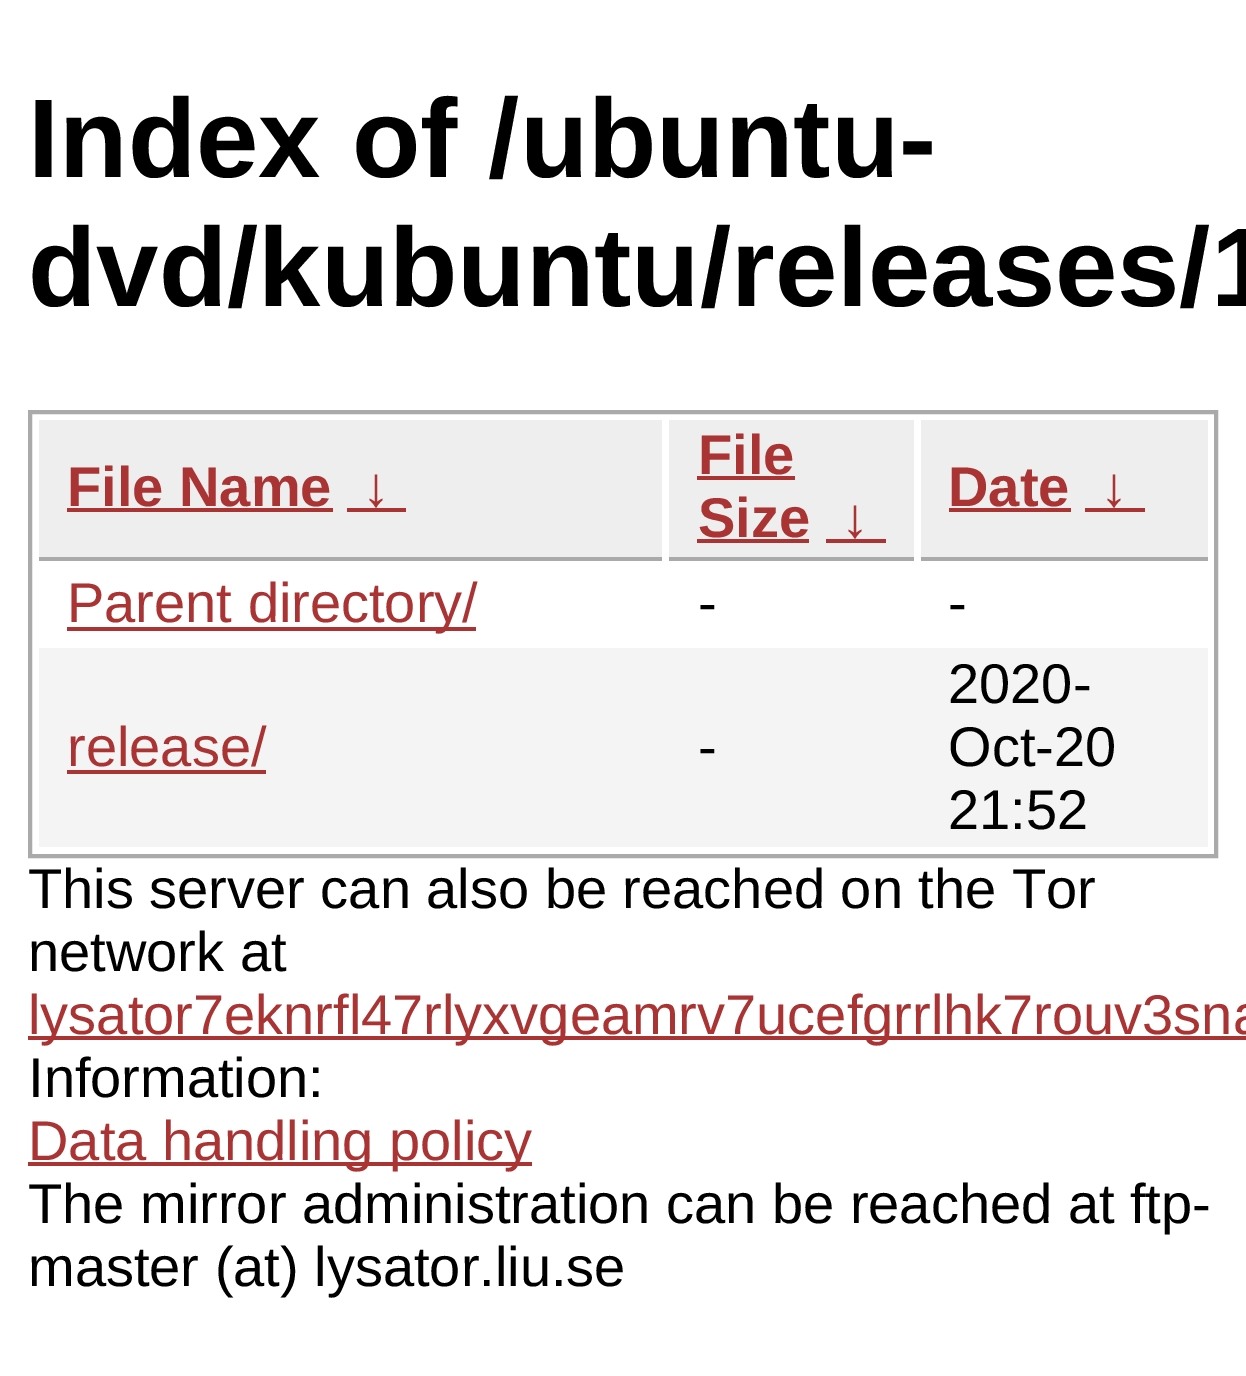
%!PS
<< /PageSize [1246 1376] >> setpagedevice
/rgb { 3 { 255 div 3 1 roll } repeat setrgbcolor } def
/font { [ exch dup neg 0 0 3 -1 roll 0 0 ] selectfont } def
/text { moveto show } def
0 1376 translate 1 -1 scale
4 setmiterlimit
255 255 255 rgb
0 0 1246 1376 rectfill
170 170 170 rgb
4 setlinewidth
30 412 1186 444 rectstroke
238 238 238 rgb
39 420 623 137 rectfill
170 170 170 rgb
39 557 623 4 rectfill
170 51 51 rgb
67 508 266 4 rectfill
347 508 59 4 rectfill
238 238 238 rgb
669 420 245 137 rectfill
170 170 170 rgb
669 557 245 4 rectfill
170 51 51 rgb
697 476 98 4 rectfill
697 539 112 4 rectfill
826 539 60 4 rectfill
238 238 238 rgb
921 420 287 137 rectfill
170 170 170 rgb
921 557 287 4 rectfill
170 51 51 rgb
949 508 122 4 rectfill
1085 508 60 4 rectfill
67 627 409 4 rectfill
244 244 244 rgb
39 648 1169 199 rectfill
170 51 51 rgb
67 770 199 4 rectfill
28 1036 1218 4 rectfill
28 1162 504 4 rectfill
/LiberationSans-Bold 112 font
0 0 0 rgb
(Index of /ubuntu-) 28 177 text
(dvd/kubuntu/releases/1) 28 306 text
/LiberationSans-Bold 56 font
170 51 51 rgb
(File Name) 67 506 text
(↓) 362 506 text
(File) 698 474 text
(Size) 698 537 text
(↓) 841 537 text
(Date) 948 506 text
(↓) 1100 506 text
/LiberationSans-Regular 56 font
(Parent directory/) 67 622 text
0 0 0 rgb
(-) 698 622 text
(-) 948 622 text
170 51 51 rgb
(release/) 67 766 text
0 0 0 rgb
(-) 698 766 text
(2020-) 948 703 text
(Oct-20) 948 766 text
(21:52) 948 829 text
(This server can also be reached on the Tor) 28 908 text
(network at) 28 971 text
170 51 51 rgb
(lysator7eknrfl47rlyxvgeamrv7ucefgrrlhk7rouv3sna) 28 1034 text
0 0 0 rgb
(Information:) 28 1097 text
170 51 51 rgb
(Data handling policy) 28 1160 text
0 0 0 rgb
(The mirror administration can be reached at ftp-) 28 1223 text
(master \(at\) lysator.liu.se) 28 1286 text
showpage
